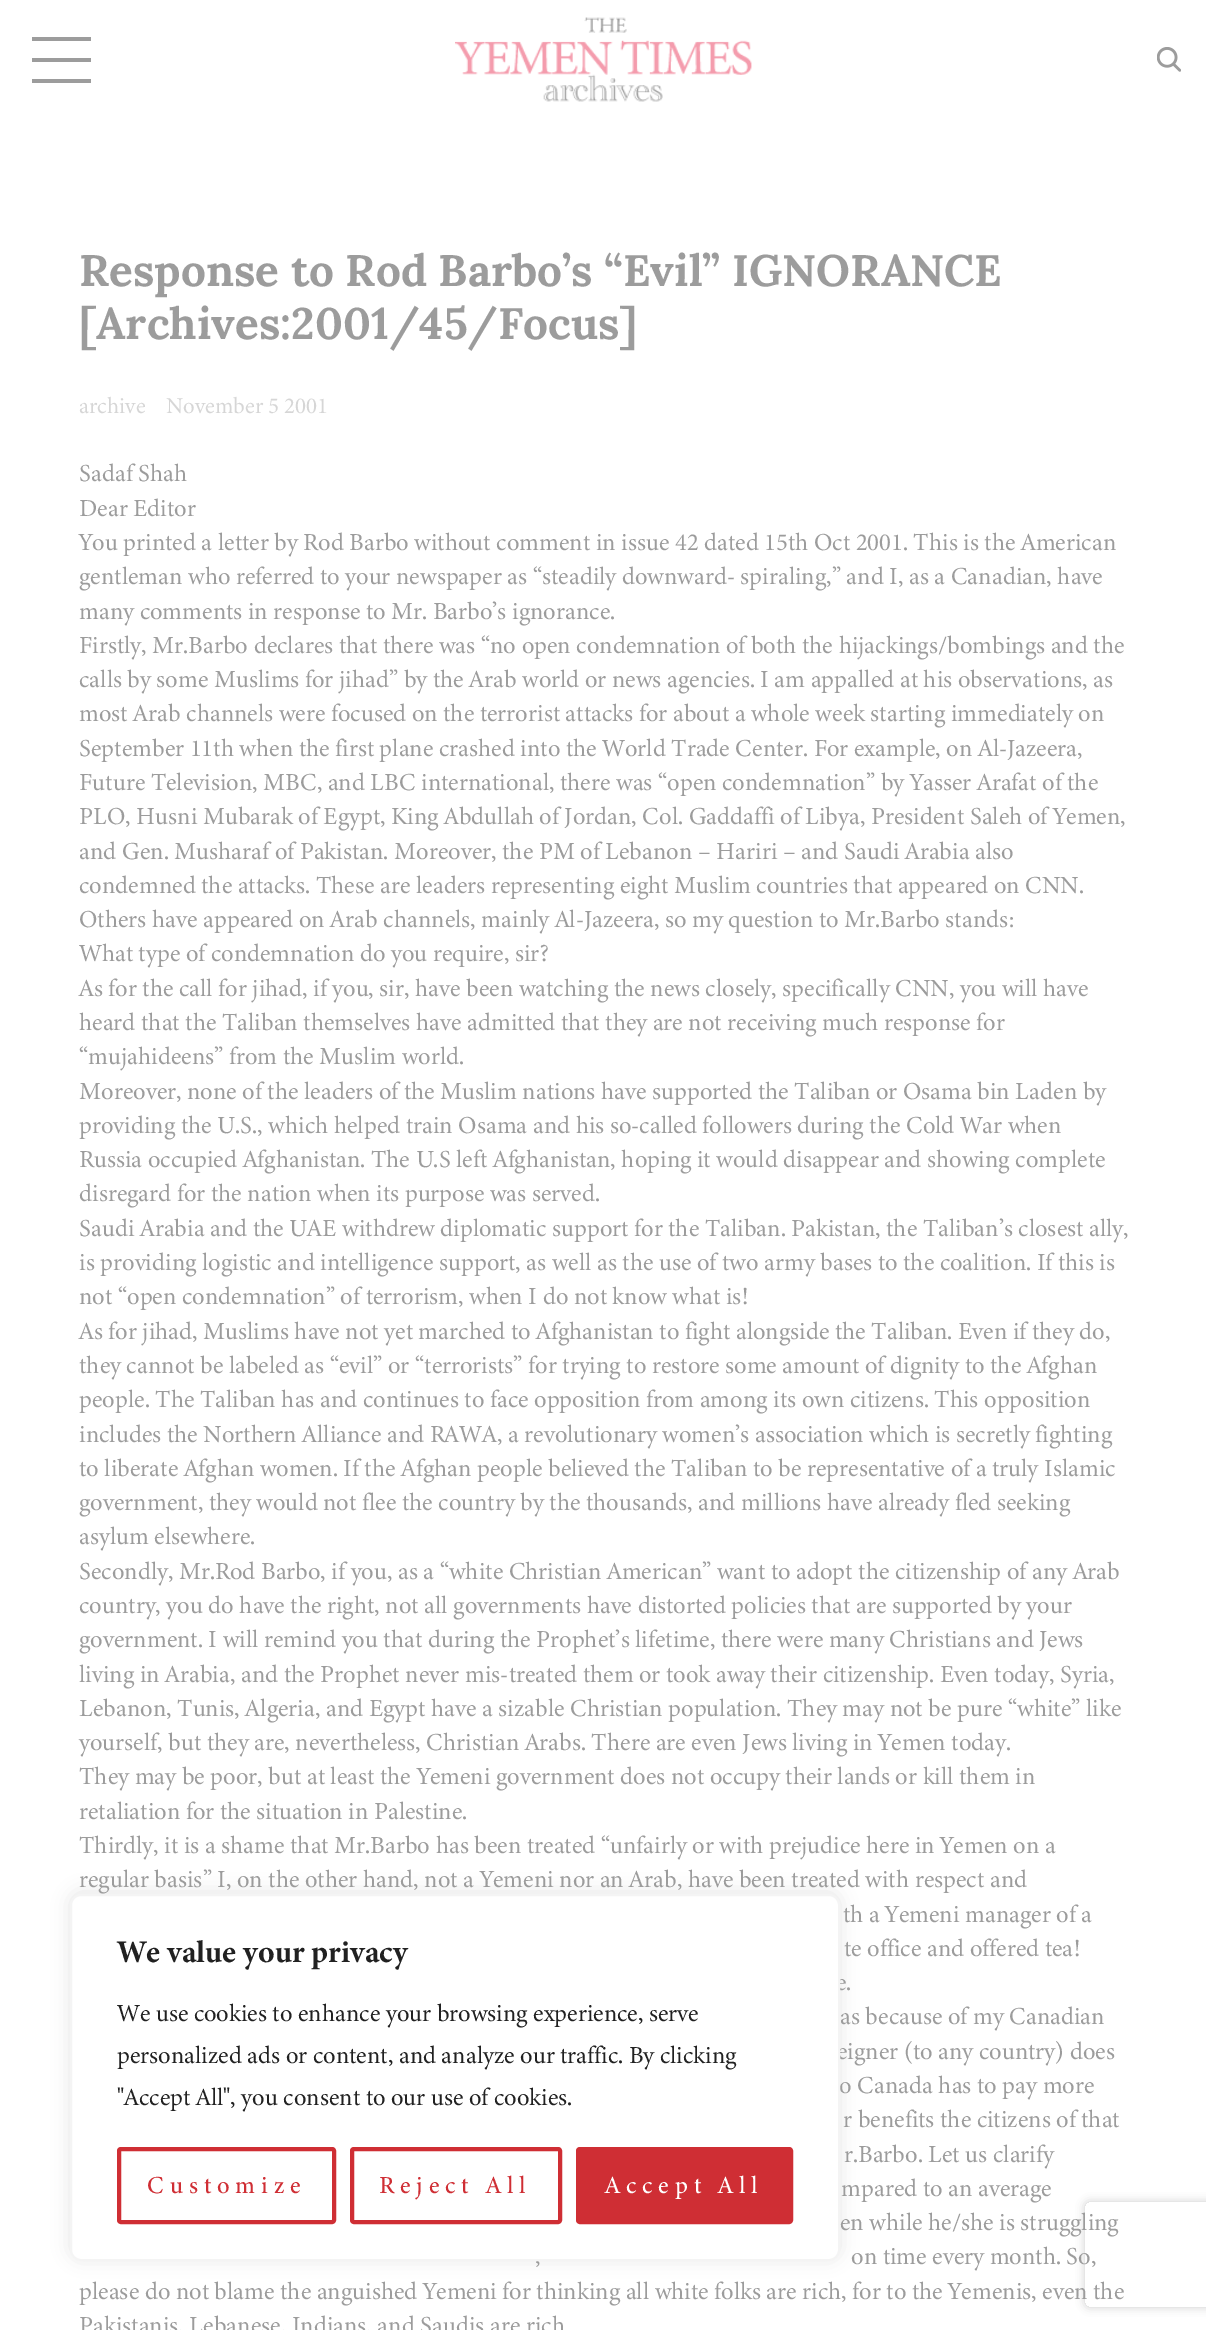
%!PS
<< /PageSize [1206 2330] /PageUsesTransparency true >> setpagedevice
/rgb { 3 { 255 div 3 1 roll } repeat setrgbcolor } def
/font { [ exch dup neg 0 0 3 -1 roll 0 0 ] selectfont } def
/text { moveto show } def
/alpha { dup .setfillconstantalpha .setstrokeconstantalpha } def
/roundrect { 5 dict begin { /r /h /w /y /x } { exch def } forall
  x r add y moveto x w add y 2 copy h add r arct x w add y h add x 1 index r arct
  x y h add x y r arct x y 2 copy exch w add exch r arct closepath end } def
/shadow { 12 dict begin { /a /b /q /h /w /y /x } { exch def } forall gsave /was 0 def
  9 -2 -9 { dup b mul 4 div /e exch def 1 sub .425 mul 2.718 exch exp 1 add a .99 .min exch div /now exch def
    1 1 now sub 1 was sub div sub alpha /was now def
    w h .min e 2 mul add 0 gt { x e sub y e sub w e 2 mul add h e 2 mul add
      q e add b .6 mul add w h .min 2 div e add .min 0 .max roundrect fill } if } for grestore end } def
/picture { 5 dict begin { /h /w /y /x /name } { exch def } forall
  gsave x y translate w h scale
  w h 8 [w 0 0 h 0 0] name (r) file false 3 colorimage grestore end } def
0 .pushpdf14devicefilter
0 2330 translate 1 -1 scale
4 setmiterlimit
255 255 255 rgb
0 0 1206 2330 rectfill
156 156 156 rgb
32 37 59 4 rectfill
32 58 59 4 rectfill
32 79 59 4 rectfill
(img_01.rgb) 455 17 297 85 picture
(img_02.rgb) 1157 47 24 25 picture
172 171 171 rgb
70 1892 770 367 11 9 0.3 shadow
gsave
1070 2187 moveto 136 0 rlineto 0 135 rlineto -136 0 rlineto closepath 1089 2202 moveto 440 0 rlineto 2 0 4 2 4 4 rcurveto 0 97 rlineto 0 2 -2 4 -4 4 rcurveto -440 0 rlineto -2 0 -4 -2 -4 -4 rcurveto 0 -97 rlineto 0 -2 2 -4 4 -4 rcurveto closepath eoclip newpath
205 205 205 rgb
1085 2202 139 105 4 4.5 1 shadow
grestore
/Lora-Bold 44.1 font
156 156 156 rgb
(Response to Rod Barbo’s “Evil”) 79 286 text
(IGNORANCE) 732 286 text
([Archives:2001/45/Focus]) 79 339 text
/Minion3-Regular 22.75 font
214 214 214 rgb
(archive) 79 413 text
(November 5 2001) 166 413 text
/Minion3-Regular 24.5 font
156 156 156 rgb
(Sadaf Shah) 79 481 text
(Dear Editor) 79 516 text
(You printed a letter by Rod Barbo without comment in issue 42 dated 15th Oct 2001. This is the American) 79 550 text
(gentleman who referred to your newspaper as “steadily downward- spiraling,” and I, as a Canadian, have) 79 584 text
(many comments in response to Mr. Barbo’s ignorance.) 79 619 text
(Firstly, Mr.Barbo declares that there was “no open condemnation of both the hijackings/bombings and the) 79 653 text
(calls by some Muslims for jihad” by the Arab world or news agencies. I am appalled at his observations, as) 79 687 text
(most Arab channels were focused on the terrorist attacks for about a whole week starting immediately on) 79 721 text
(September 11th when the first plane crashed into the World Trade Center. For example, on Al-Jazeera,) 79 756 text
(Future Television, MBC, and LBC international, there was “open condemnation” by Yasser Arafat of the) 79 790 text
(PLO, Husni Mubarak of Egypt, King Abdullah of Jordan, Col. Gaddaffi of Libya, President Saleh of Yemen,) 79 824 text
(and Gen. Musharaf of Pakistan. Moreover, the PM of Lebanon – Hariri – and Saudi Arabia also) 79 859 text
(condemned the attacks. These are leaders representing eight Muslim countries that appeared on CNN.) 79 893 text
(Others have appeared on Arab channels, mainly Al-Jazeera, so my question to Mr.Barbo stands:) 79 927 text
(What type of condemnation do you require, sir?) 79 961 text
(As for the call for jihad, if you, sir, have been watching the news closely, specifically CNN, you will have) 79 996 text
(heard that the Taliban themselves have admitted that they are not receiving much response for) 79 1030 text
(“mujahideens” from the Muslim world.) 79 1064 text
(Moreover, none of the leaders of the Muslim nations have supported the Taliban or Osama bin Laden by) 79 1099 text
(providing the U.S., which helped train Osama and his so-called followers during the Cold War when) 79 1133 text
(Russia occupied Afghanistan. The U.S left Afghanistan, hoping it would disappear and showing complete) 79 1167 text
(disregard for the nation when its purpose was served.) 79 1201 text
(Saudi Arabia and the UAE withdrew diplomatic support for the Taliban. Pakistan, the Taliban’s closest ally,) 79 1236 text
(is providing logistic and intelligence support, as well as the use of two army bases to the coalition. If this is) 79 1270 text
(not “open condemnation” of terrorism, when I do not know what is!) 79 1304 text
(As for jihad, Muslims have not yet marched to Afghanistan to fight alongside the Taliban. Even if they do,) 79 1339 text
(they cannot be labeled as “evil” or “terrorists” for trying to restore some amount of dignity to the Afghan) 79 1373 text
(people. The Taliban has and continues to face opposition from among its own citizens. This opposition) 79 1407 text
(includes the Northern Alliance and RAWA, a revolutionary women’s association which is secretly fighting) 79 1442 text
(to liberate Afghan women. If the Afghan people believed the Taliban to be representative of a truly Islamic) 79 1476 text
(government, they would not flee the country by the thousands, and millions have already fled seeking) 79 1510 text
(asylum elsewhere.) 79 1544 text
(Secondly, Mr.Rod Barbo, if you, as a “white Christian American” want to adopt the citizenship of any Arab) 79 1579 text
(country, you do have the right, not all governments have distorted policies that are supported by your) 79 1613 text
(government. I will remind you that during the Prophet’s lifetime, there were many Christians and Jews) 79 1647 text
(living in Arabia, and the Prophet never mis-treated them or took away their citizenship. Even today, Syria,) 79 1682 text
(Lebanon, Tunis, Algeria, and Egypt have a sizable Christian population. They may not be pure “white” like) 79 1716 text
(yourself, but they are, nevertheless, Christian Arabs. There are even Jews living in Yemen today.) 79 1750 text
(They may be poor, but at least the Yemeni government does not occupy their lands or kill them in) 79 1784 text
(retaliation for the situation in Palestine.) 79 1819 text
(Thirdly, it is a shame that Mr.Barbo has been treated “unfairly or with prejudice here in Yemen on a) 79 1853 text
(regular basis” I, on the other hand, not a Yemeni nor an Arab, have been treated with respect and) 79 1887 text
(th a Yemeni manager of a) 843 1922 text
(te office and offered tea!) 844 1956 text
(e.) 836 1990 text
(as because of my Canadian) 840 2024 text
(eigner \(to any country\) does) 837 2059 text
(o Canada has to pay more) 839 2093 text
(r benefits the citizens of that) 843 2127 text
(r.Barbo. Let us clarify) 844 2162 text
(mpared to an average) 841 2196 text
(en while he/she is struggling) 840 2230 text
(,) 535 2264 text
(on time every month. So,) 851 2264 text
(please do not blame the anguished Yemeni for thinking all white folks are rich, for to the Yemenis, even the) 79 2299 text
(Pakistanis, Lebanese, Indians, and Saudis are rich) 79 2333 text
255 255 255 rgb
71 1895 768 365 10 roundrect gsave fill grestore
244 244 244 rgb
2 setlinewidth
stroke
/Minion3-Bold 31.5 font
33 33 33 rgb
(We value your privacy) 117 1962 text
/Minion3-Regular 24.5 font
(We use cookies to enhance your browsing experience, serve) 117 2021 text
(personalized ads or content, and analyze our traffic. By clicking) 117 2063 text
("Accept All", you consent to our use of cookies.) 117 2105 text
207 46 52 rgb
4 setlinewidth
119 2149 215 73 2 roundrect stroke
/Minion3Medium-Medium 24.5 font
147 2193 moveto 5.9 0 (Customize) ashow
352 2149 208 73 2 roundrect stroke
379 2193 moveto 5.9 0 (Reject All) ashow
578 2149 213 73 2 roundrect gsave fill grestore
stroke
255 255 255 rgb
605 2193 moveto 5.9 0 (Accept All) ashow
.poppdf14devicefilter showpage
